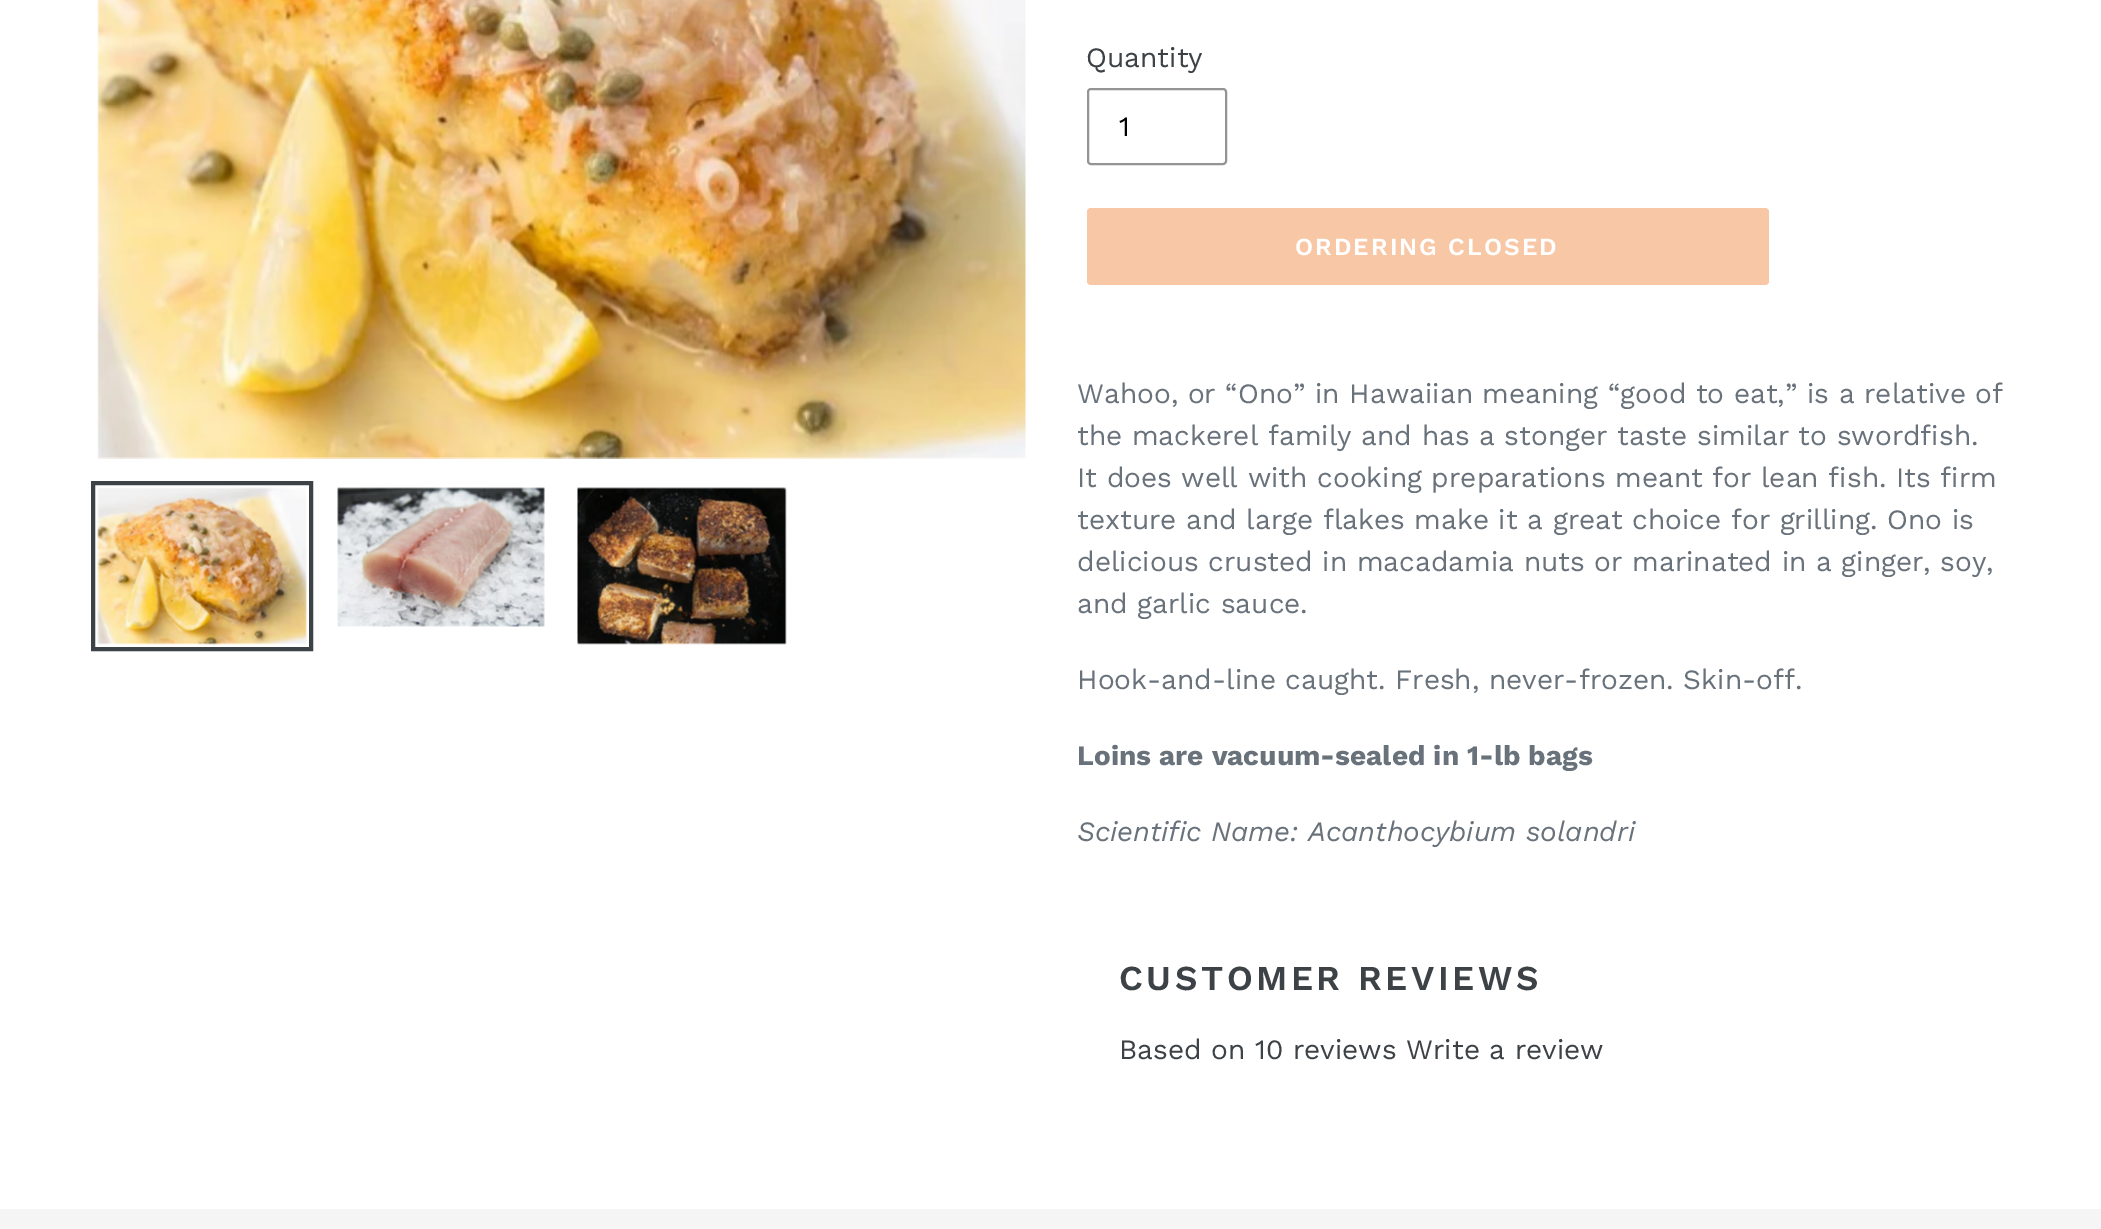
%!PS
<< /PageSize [2101 1229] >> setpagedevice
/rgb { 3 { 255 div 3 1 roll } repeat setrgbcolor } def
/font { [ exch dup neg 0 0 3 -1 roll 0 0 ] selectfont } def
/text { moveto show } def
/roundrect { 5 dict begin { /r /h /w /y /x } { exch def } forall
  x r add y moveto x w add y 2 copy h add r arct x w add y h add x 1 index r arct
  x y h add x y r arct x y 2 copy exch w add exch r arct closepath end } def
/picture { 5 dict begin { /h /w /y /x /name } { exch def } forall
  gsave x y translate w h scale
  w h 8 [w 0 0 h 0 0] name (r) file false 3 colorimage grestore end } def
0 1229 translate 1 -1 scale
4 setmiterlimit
255 255 255 rgb
0 0 2101 1229 rectfill
(img_01.rgb) 97 0 929 459 picture
61 66 70 rgb
4 setlinewidth
93 483 218 166 rectstroke
(img_02.rgb) 97 487 210 158 picture
(img_03.rgb) 337 487 208 140 picture
(img_04.rgb) 577 487 210 158 picture
148 148 148 rgb
2 setlinewidth
1088 89 138 75 3 roundrect stroke
248 199 165 rgb
1087 208 682 77 4 roundrect fill
245 245 245 rgb
0 1209 2101 20 rectfill
/WorkSans-Regular 28 font
61 66 70 rgb
(Quantity) 1086 67 text
0 0 0 rgb
(1) 1119 136 text
/WorkSans-SemiBold 24.5 font
255 255 255 rgb
1295 255 moveto 2 0 (ORDERING CLOSED) ashow
/WorkSans-Regular 28 font
105 114 123 rgb
(Wahoo, or “Ono” in Hawaiian meaning “good to eat,” is a relative of) 1077 403 text
(the mackerel family and has a stonger taste similar to swordfish.) 1077 445 text
(It does well with cooking preparations meant for lean fish. Its firm) 1077 487 text
(texture and large flakes make it a great choice for grilling. Ono is) 1077 529 text
(delicious crusted in macadamia nuts or marinated in a ginger, soy,) 1077 571 text
(and garlic sauce.) 1077 613 text
(Hook-and-line caught. Fresh, never-frozen. Skin-off.) 1077 689 text
/WorkSans-Bold 28 font
(Loins are vacuum-sealed in 1-lb bags) 1077 765 text
/WorkSans-Italic 28 font
(Scientific Name: Acanthocybium solandri) 1077 841 text
/WorkSans-SemiBold 35 font
61 66 70 rgb
1119 990 moveto 3.5 0 (CUSTOMER REVIEWS) ashow
/WorkSans-Regular 28 font
(Based on 10 reviews Write a review) 1119 1059 text
showpage
